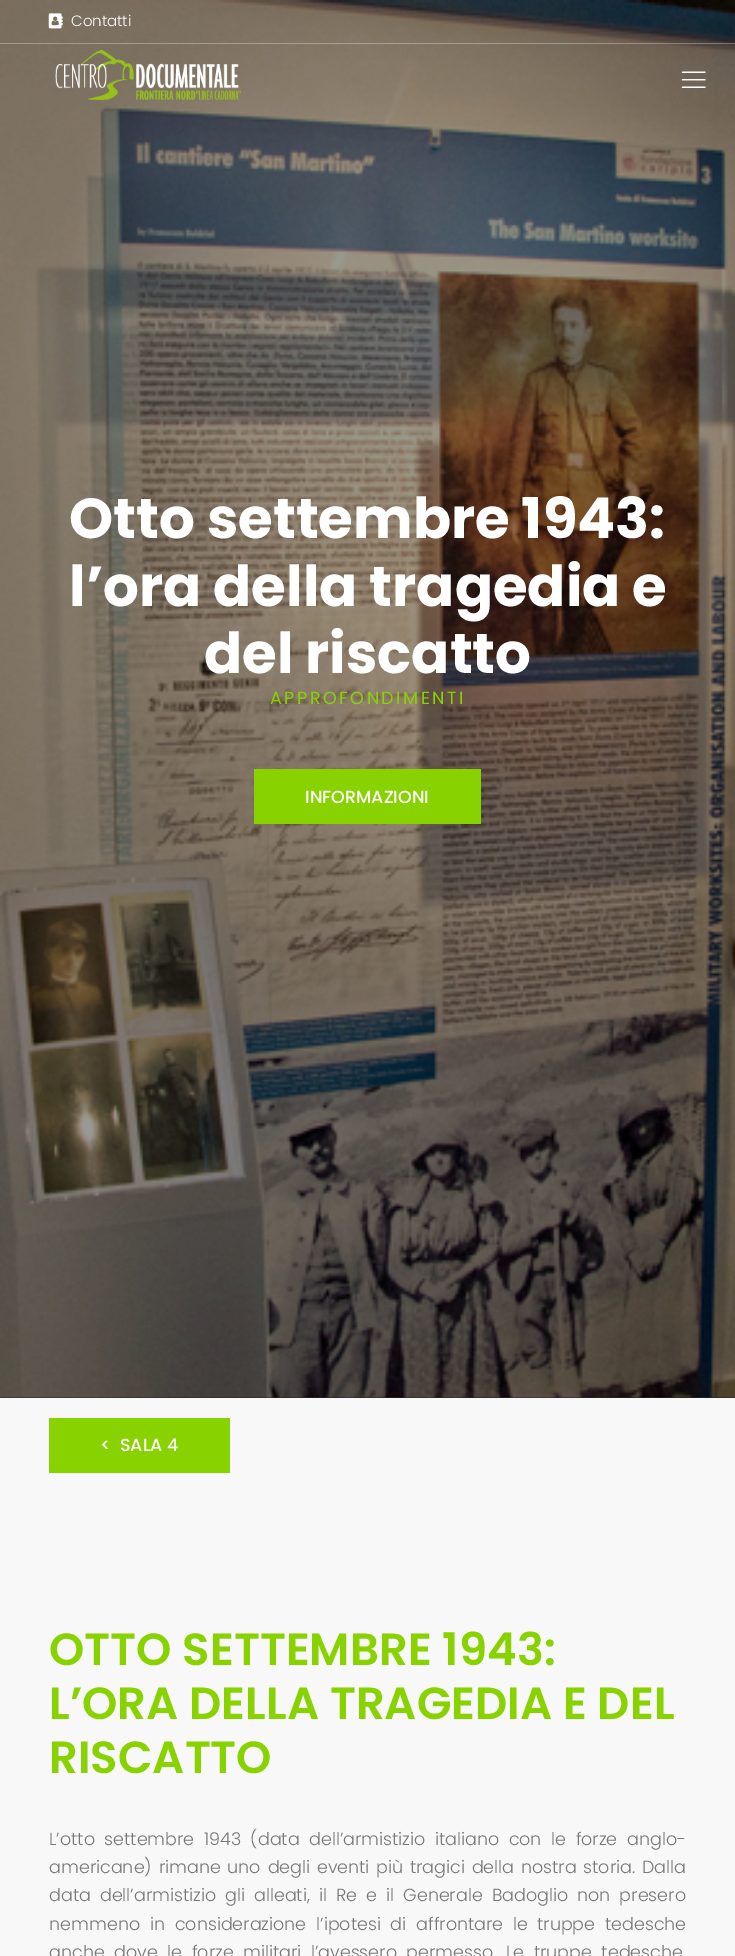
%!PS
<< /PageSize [735 1956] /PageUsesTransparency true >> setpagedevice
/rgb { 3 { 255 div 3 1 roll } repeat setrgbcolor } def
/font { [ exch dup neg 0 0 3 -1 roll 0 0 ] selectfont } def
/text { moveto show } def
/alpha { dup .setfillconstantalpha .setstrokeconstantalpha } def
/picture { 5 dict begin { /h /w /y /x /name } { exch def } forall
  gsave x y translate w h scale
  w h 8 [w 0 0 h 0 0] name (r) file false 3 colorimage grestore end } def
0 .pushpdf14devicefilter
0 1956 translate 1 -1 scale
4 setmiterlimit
38 38 39 rgb
0 0 735 1956 rectfill
(img_04.rgb) 0 0 735 1398 picture
(img_01.rgb) 48 13 15 16 picture
0.3 alpha
255 255 255 rgb
0 43 735 1 rectfill
1 alpha
(img_02.rgb) 55 50 186 50 picture
(img_03.rgb) 681 71 25 17 picture
136 210 0 rgb
254 769 227 55 rectfill
248 248 248 rgb
0 1398 735 558 rectfill
136 210 0 rgb
49 1418 181 55 rectfill
/Poppins-Light 15 font
255 255 255 rgb
(Contatti) 71 26 text
/Poppins-Bold 56.25 font
(Otto settembre 1943:) 69 538 text
(l’ora della tragedia e) 69 606 text
(del riscatto) 204 673 text
/Poppins-Regular 17.5 font
136 210 0 rgb
270 704 moveto 2.5 0 (APPROFONDIMENTI) ashow
/Poppins-Medium 17.5 font
255 255 255 rgb
(INFORMAZIONI) 305 803 text
(<  SALA 4) 100 1451 text
/Poppins-SemiBold 45 font
136 210 0 rgb
(OTTO SETTEMBRE 1943:) 49 1665 text
(L’ORA DELLA TRAGEDIA E DEL) 49 1719 text
(RISCATTO) 49 1773 text
/Poppins-Light 17.5 font
119 119 119 rgb
49 1845 moveto 4.75 0 32 (L’otto settembre 1943 \(data dell’armistizio italiano con le forze anglo-) widthshow
49 1873 moveto 2 0 32 (americane\) rimane uno degli eventi più tragici della nostra storia.) widthshow
(Dalla) 642 1873 text
49 1901 moveto 4.25 0 32 (data dell’armistizio gli alleati, il Re e il Generale Badoglio non presero) widthshow
49 1930 moveto 5 0 32 (nemmeno in considerazione l’ipotesi di affrontare le) widthshow
537 1930 moveto 5 0 32 (truppe tedesche) widthshow
49 1958 moveto 4.75 0 32 (anche dove le forze militari l’avessero permesso. Le truppe tedesche) widthshow
.poppdf14devicefilter showpage
